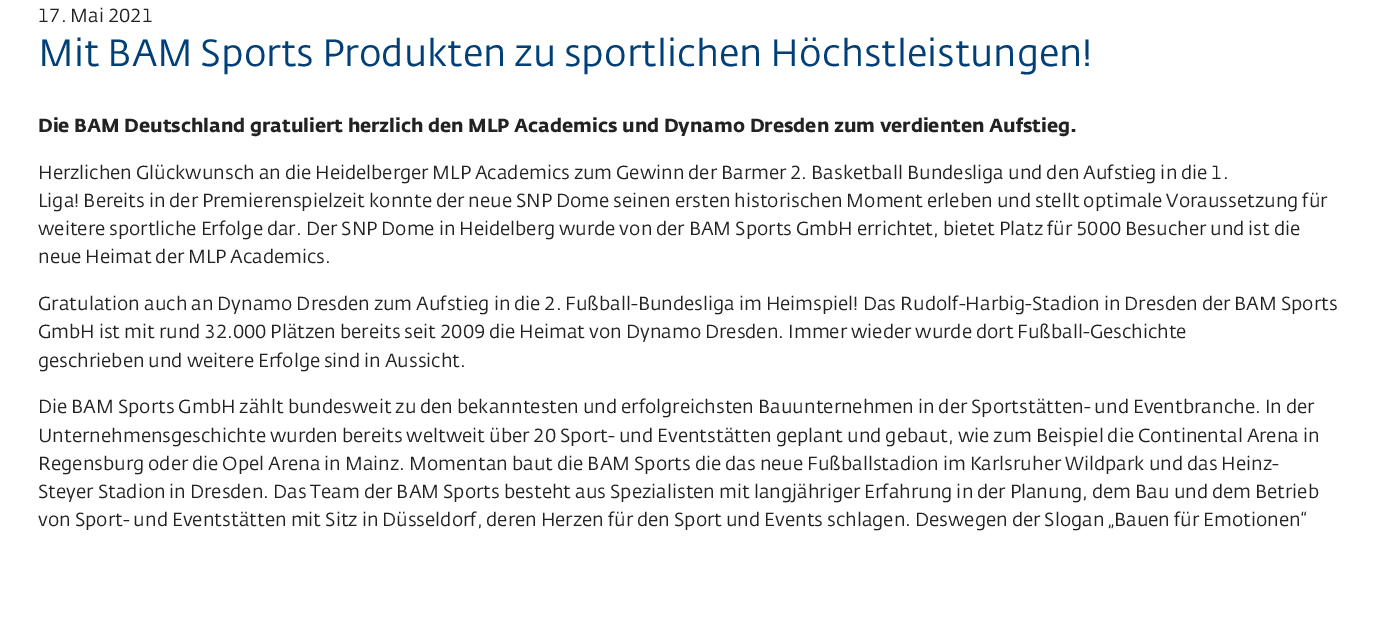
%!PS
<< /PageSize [1381 625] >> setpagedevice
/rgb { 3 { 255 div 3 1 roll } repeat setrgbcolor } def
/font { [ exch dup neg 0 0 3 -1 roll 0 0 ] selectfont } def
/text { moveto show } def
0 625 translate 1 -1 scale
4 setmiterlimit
255 255 255 rgb
0 0 1381 625 rectfill
/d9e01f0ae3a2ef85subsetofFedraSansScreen-Regular 18.75 font
34 34 34 rgb
(17. Mai 2021) 38 22 text
/d9e01f0ae3a2ef85subsetofFedraSansScreen-Regular 37.5 font
0 63 119 rgb
(Mit BAM Sports Produkten zu sportlichen Höchstleistungen!) 38 66 text
/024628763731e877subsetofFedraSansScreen-Bold 18.75 font
34 34 34 rgb
(Die BAM Deutschland gratuliert herzlich den MLP Academics und Dynamo Dresden zum verdienten Aufstieg.) 38 132 text
/d9e01f0ae3a2ef85subsetofFedraSansScreen-Regular 18.75 font
(Herzlichen Glückwunsch an die Heidelberger MLP Academics zum Gewinn der Barmer 2. Basketball Bundesliga und den Aufstieg in die 1.) 38 179 text
(Liga! Bereits in der Premierenspielzeit konnte der neue SNP Dome seinen ersten historischen Moment erleben und stellt optimale Voraussetzung für) 38 207 text
(weitere sportliche Erfolge dar. Der SNP Dome in Heidelberg wurde von der BAM Sports GmbH errichtet, bietet Platz für 5000 Besucher und ist die) 38 235 text
(neue Heimat der MLP Academics.) 38 263 text
(Gratulation auch an Dynamo Dresden zum Aufstieg in die 2. Fußball-Bundesliga im Heimspiel! Das Rudolf-Harbig-Stadion in Dresden der BAM Sports) 38 310 text
(GmbH ist mit rund 32.000 Plätzen bereits seit 2009 die Heimat von Dynamo Dresden. Immer wieder wurde dort Fußball-Geschichte) 38 338 text
(geschrieben und weitere Erfolge sind in Aussicht.) 38 367 text
(Die BAM Sports GmbH zählt bundesweit zu den bekanntesten und erfolgreichsten Bauunternehmen in der Sportstätten- und Eventbranche. In der) 38 413 text
(Unternehmensgeschichte wurden bereits weltweit über 20 Sport- und Eventstätten geplant und gebaut, wie zum Beispiel die Continental Arena in) 38 442 text
(Regensburg oder die Opel Arena in Mainz. Momentan baut die BAM Sports die das neue Fußballstadion im Karlsruher Wildpark und das Heinz-) 38 470 text
(Steyer Stadion in Dresden. Das Team der BAM Sports besteht aus Spezialisten mit langjähriger Erfahrung in der Planung, dem Bau und dem Betrieb) 38 498 text
(von Sport- und Eventstätten mit Sitz in Düsseldorf, deren Herzen für den Sport und Events schlagen. Deswegen der Slogan „Bauen für Emotionen“) 38 526 text
showpage
